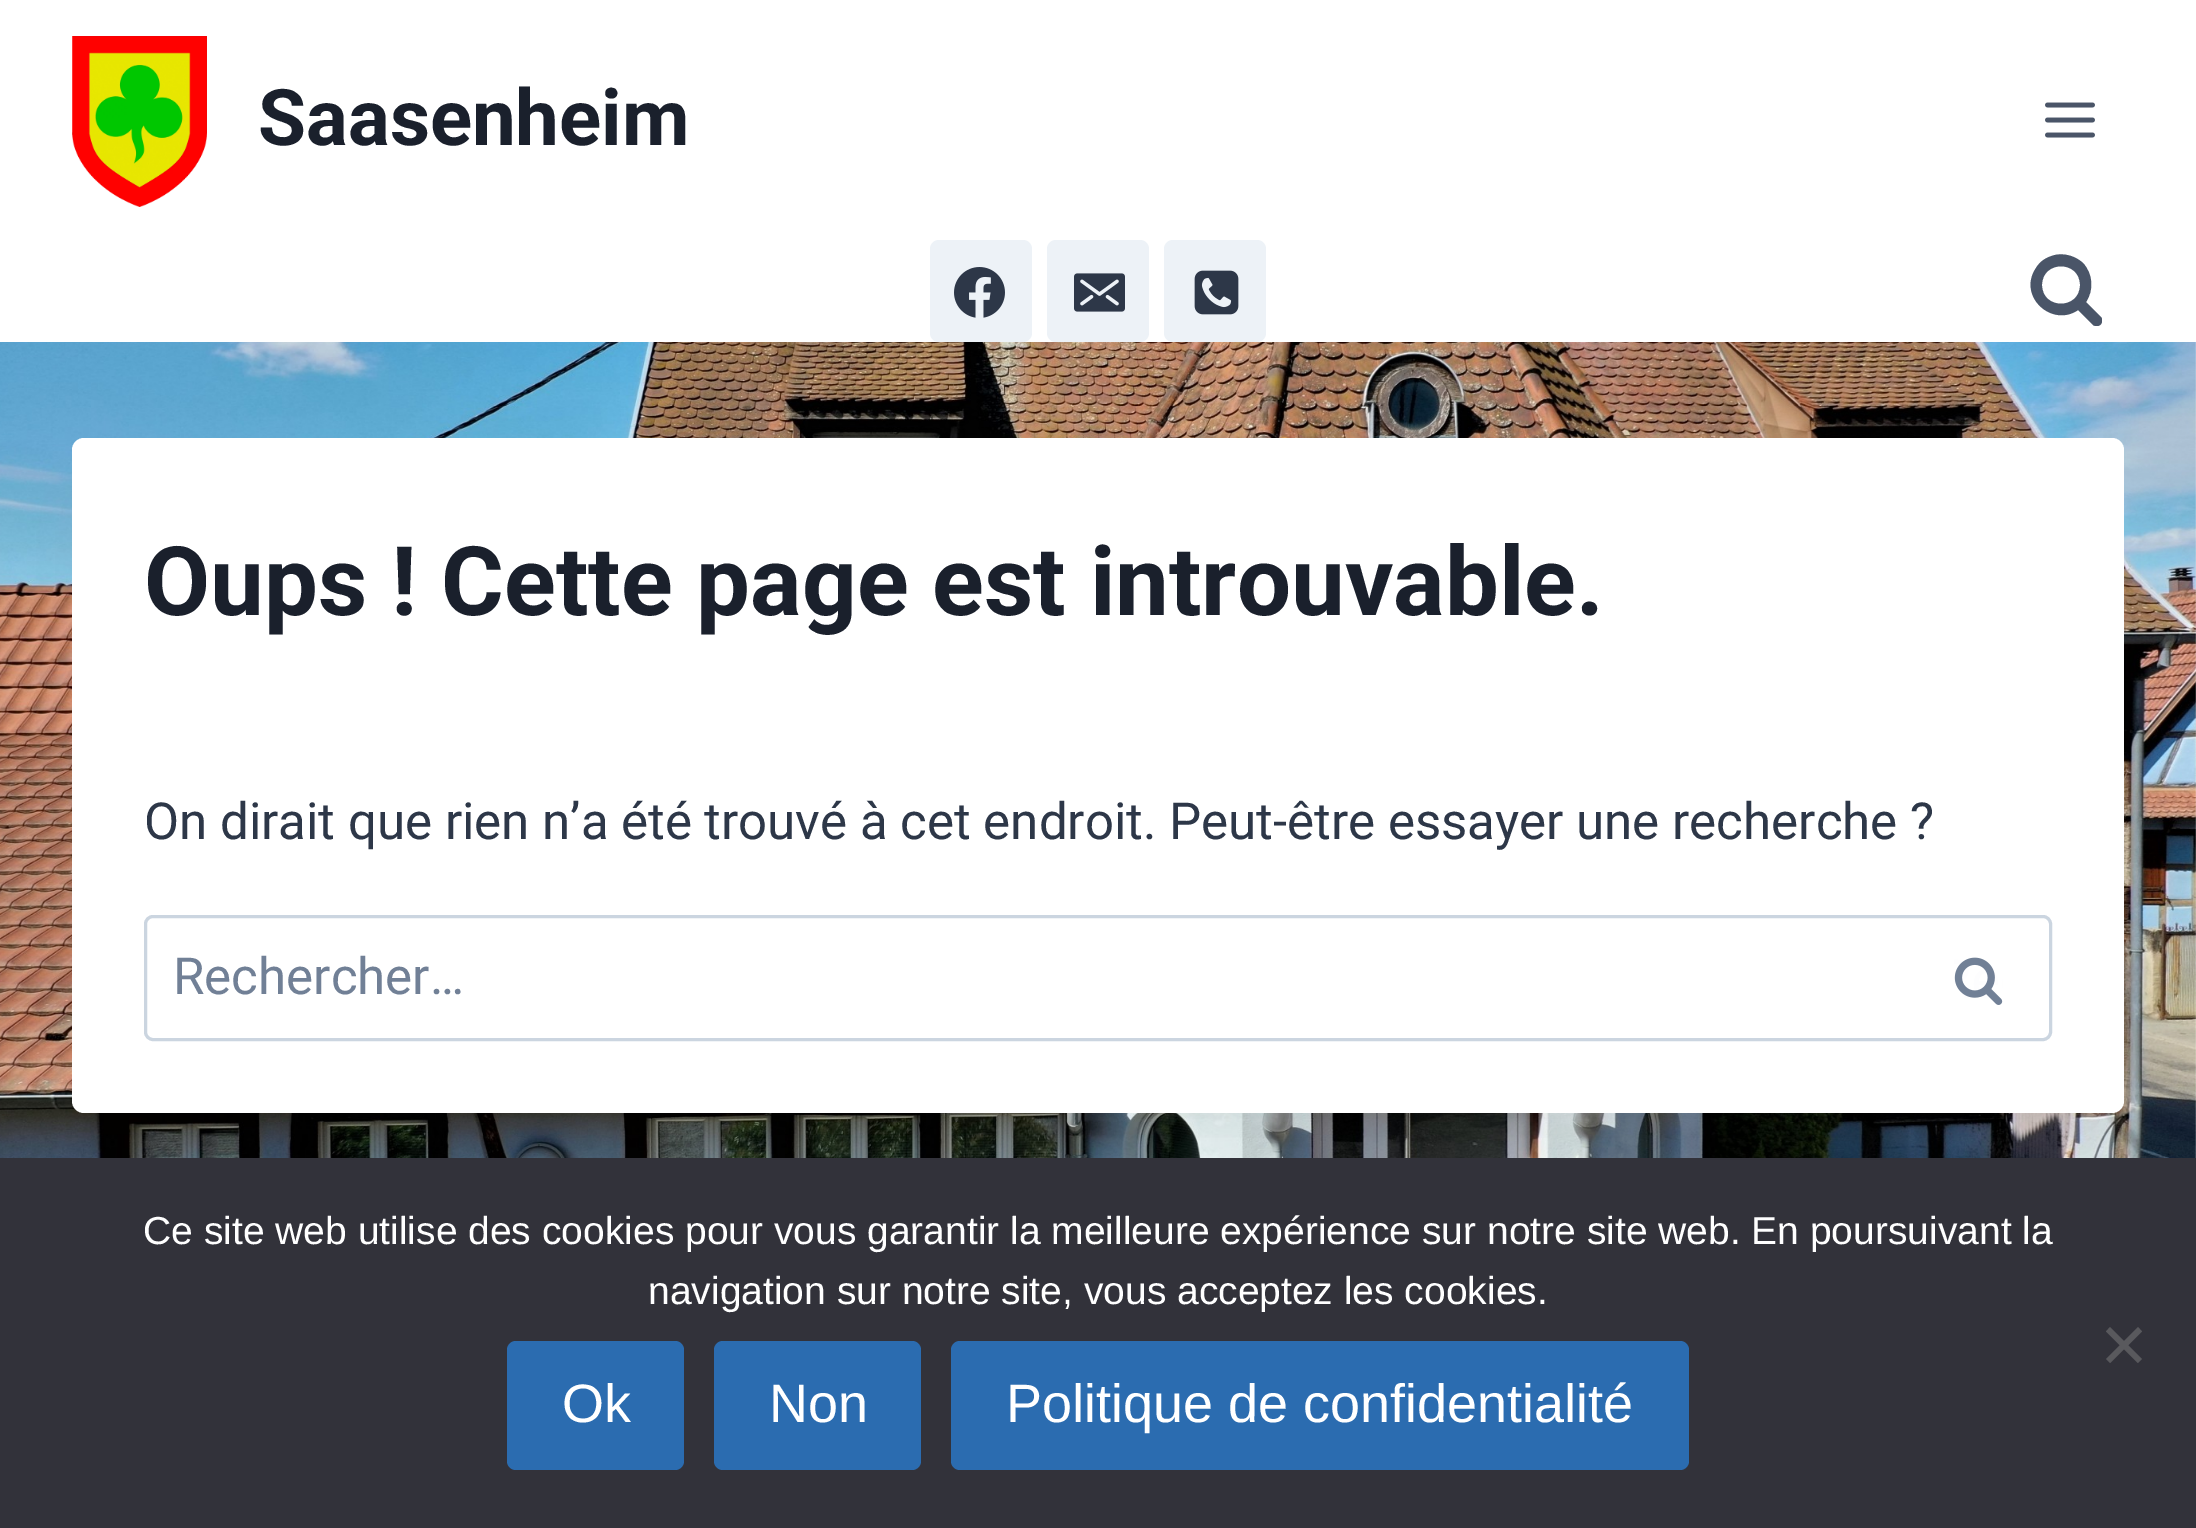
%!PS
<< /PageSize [2196 1528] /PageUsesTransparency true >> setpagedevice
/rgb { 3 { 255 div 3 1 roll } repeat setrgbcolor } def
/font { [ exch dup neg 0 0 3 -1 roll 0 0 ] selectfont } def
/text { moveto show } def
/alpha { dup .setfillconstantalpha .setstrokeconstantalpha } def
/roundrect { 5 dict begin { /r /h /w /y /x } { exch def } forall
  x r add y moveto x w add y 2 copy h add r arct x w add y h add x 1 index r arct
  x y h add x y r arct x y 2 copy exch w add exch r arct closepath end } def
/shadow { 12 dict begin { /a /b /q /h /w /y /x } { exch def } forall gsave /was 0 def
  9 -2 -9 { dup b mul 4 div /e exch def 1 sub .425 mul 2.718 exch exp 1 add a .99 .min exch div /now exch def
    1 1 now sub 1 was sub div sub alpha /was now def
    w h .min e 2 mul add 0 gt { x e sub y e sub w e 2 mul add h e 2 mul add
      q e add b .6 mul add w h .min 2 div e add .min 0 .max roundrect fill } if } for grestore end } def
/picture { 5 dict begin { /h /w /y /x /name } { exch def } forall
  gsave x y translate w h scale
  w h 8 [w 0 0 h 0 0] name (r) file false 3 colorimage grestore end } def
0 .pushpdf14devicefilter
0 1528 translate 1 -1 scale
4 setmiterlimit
255 255 255 rgb
0 0 2196 1528 rectfill
(img_01.rgb) 0 342 2196 816 picture
(img_02.rgb) 72 36 135 171 picture
(img_03.rgb) 2045 102 50 36 picture
237 242 247 rgb
930 240 102 102 9 roundrect fill
(img_04.rgb) 954 267 51 51 picture
1047 240 102 102 9 roundrect fill
(img_05.rgb) 1074 273 51 39 picture
1164 240 102 102 9 roundrect fill
(img_06.rgb) 1194 270 45 45 picture
74 85 104 rgb
2080 285 moveto 0 -25 -38 -25 -38 0 rcurveto 0 25 38 25 38 0 rcurveto closepath 2102 321 moveto 0 3 -2 5 -5 5 rcurveto -1 0 -3 0 -4 -1 rcurveto -15 -15 rlineto -26 18 -61 -14 -42 -42 rcurveto 4 -7 11 -11 19 -13 rcurveto 10 -2 20 1 28 8 rcurveto 10 11 11 27 3 39 rcurveto 15 15 rlineto 1 1 1 2 1 4 rcurveto closepath fill
0 0 0 rgb
102 513 1992 615 0 37.5 0.05 shadow
255 255 255 rgb
72 438 2052 675 12 roundrect fill
203 213 224 rgb
3 setlinewidth
145.5 916.5 1905 123 7.5 roundrect stroke
(img_07.rgb) 1954 957 49 48 picture
50 50 58 rgb
0 1158 2196 370 rectfill
89 89 93 rgb
2138 1327 moveto 4 4.5 rlineto -32 31.5 rlineto -4 -4 rlineto closepath fill
2106 1331.5 moveto 4 -4.5 rlineto 32 32 rlineto -4 4 rlineto closepath fill
43 108 176 rgb
507 1341 177 129 9 roundrect fill
714 1341 207 129 9 roundrect fill
951 1341 738 129 9 roundrect fill
/Roboto-Bold 78 font
26 32 44 rgb
(Saasenheim) 258 145 text
/Roboto-Bold 96 font
(Oups ! Cette page est introuvable.) 144 615 text
/Roboto-Regular 51 font
45 55 72 rgb
(On dirait que rien n’a été trouvé à cet endroit. Peut-être essayer une recherche ?) 144 839 text
113 128 150 rgb
(Rechercher…) 173 994 text
/LiberationSans-Regular 39 font
255 255 255 rgb
(Ce site web utilise des cookies pour vous garantir la meilleure expérience sur notre site web. En poursuivant la) 143 1244 text
(navigation sur notre site, vous acceptez les cookies.) 648 1304 text
/LiberationSans-Regular 54 font
(Ok) 562 1422 text
(Non) 769 1422 text
(Politique de confidentialité) 1006 1422 text
.poppdf14devicefilter showpage
